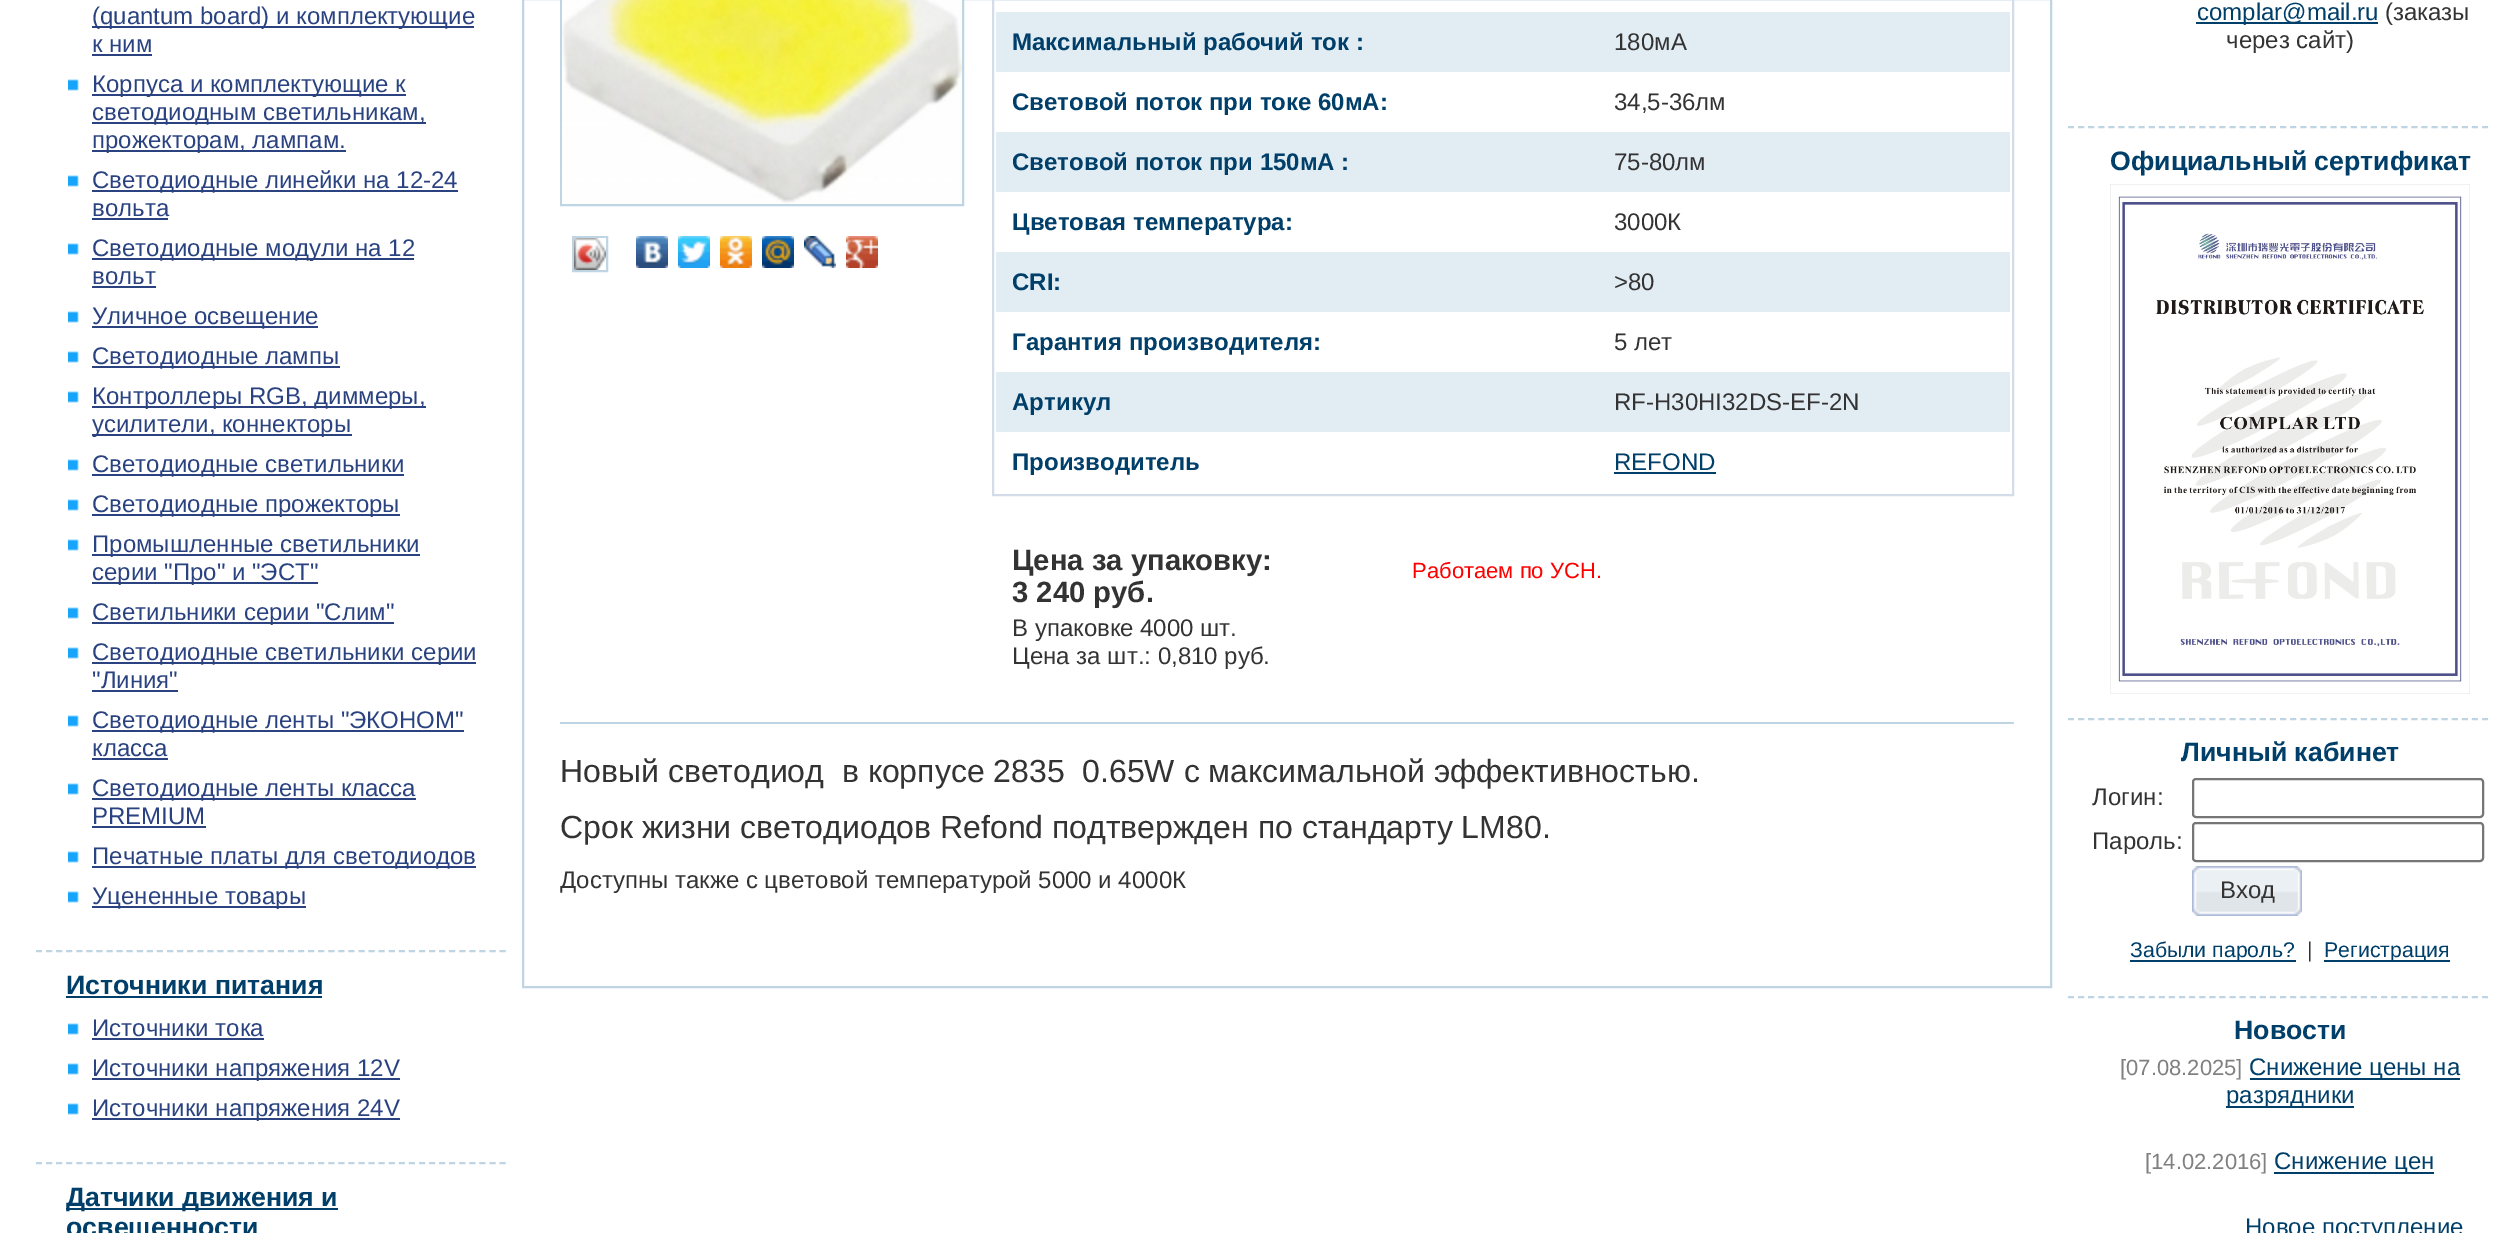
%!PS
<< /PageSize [2512 1233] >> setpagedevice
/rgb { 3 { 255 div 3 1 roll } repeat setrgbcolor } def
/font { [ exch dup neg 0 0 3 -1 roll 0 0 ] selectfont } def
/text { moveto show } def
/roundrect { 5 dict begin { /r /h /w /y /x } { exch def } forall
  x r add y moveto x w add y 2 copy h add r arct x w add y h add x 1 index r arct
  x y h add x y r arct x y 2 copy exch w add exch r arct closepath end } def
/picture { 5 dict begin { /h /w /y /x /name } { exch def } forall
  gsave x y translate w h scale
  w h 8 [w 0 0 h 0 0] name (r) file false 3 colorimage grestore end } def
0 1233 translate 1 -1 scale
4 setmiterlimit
255 255 255 rgb
0 0 2512 1233 rectfill
42 67 128 rgb
92 26 382 2 rectfill
92 54 60 2 rectfill
(img_01.rgb) 68 79 11 12 picture
92 94 314 2 rectfill
92 122 334 2 rectfill
92 150 254 2 rectfill
(img_01.rgb) 68 175 11 12 picture
92 190 366 2 rectfill
92 218 76 2 rectfill
(img_01.rgb) 68 243 11 12 picture
92 258 322 2 rectfill
92 286 64 2 rectfill
(img_01.rgb) 68 311 11 12 picture
92 326 226 2 rectfill
(img_01.rgb) 68 351 11 12 picture
92 366 248 2 rectfill
(img_01.rgb) 68 391 11 12 picture
92 406 334 2 rectfill
92 434 260 2 rectfill
(img_01.rgb) 68 459 11 12 picture
92 474 312 2 rectfill
(img_01.rgb) 68 499 11 12 picture
92 514 308 2 rectfill
(img_01.rgb) 68 539 11 12 picture
92 554 328 2 rectfill
92 582 226 2 rectfill
(img_01.rgb) 68 607 11 12 picture
92 622 302 2 rectfill
(img_01.rgb) 68 647 11 12 picture
92 662 384 2 rectfill
92 690 86 2 rectfill
(img_01.rgb) 68 715 11 12 picture
92 730 372 2 rectfill
92 758 76 2 rectfill
(img_01.rgb) 68 783 11 12 picture
92 798 324 2 rectfill
92 826 114 2 rectfill
(img_01.rgb) 68 851 11 12 picture
92 866 384 2 rectfill
(img_01.rgb) 68 891 11 12 picture
92 906 214 2 rectfill
191 213 227 rgb
2 setlinewidth
[6 4.08] 0 setdash
36 951 moveto 470 0 rlineto stroke
0 63 105 rgb
66 996 256 2 rectfill
(img_01.rgb) 68 1023 11 12 picture
42 67 128 rgb
92 1038 172 2 rectfill
(img_01.rgb) 68 1063 11 12 picture
92 1078 308 2 rectfill
(img_01.rgb) 68 1103 11 12 picture
92 1118 308 2 rectfill
191 213 227 rgb
36 1163 moveto 470 0 rlineto stroke
0 63 105 rgb
66 1208 272 2 rectfill
191 213 227 rgb
[] 0 setdash
523 -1 1528 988 rectstroke
560 722 1454 2 rectfill
561 -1 402 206 rectstroke
(img_02.rgb) 562 0 400 204 picture
(img_03.rgb) 574 238 32 32 picture
573 237 34 34 rectstroke
(img_04.rgb) 574 238 32 32 picture
(img_05.rgb) 636 236 32 32 picture
(img_06.rgb) 678 236 32 32 picture
(img_07.rgb) 720 236 32 32 picture
(img_08.rgb) 762 236 32 32 picture
(img_09.rgb) 804 236 32 32 picture
(img_10.rgb) 846 236 32 32 picture
211 221 234 rgb
993 -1 1020 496 rectstroke
226 236 243 rgb
996 12 1014 60 rectfill
996 132 1014 60 rectfill
996 252 1014 60 rectfill
996 372 1014 60 rectfill
0 63 105 rgb
1614 472 102 2 rectfill
2196 22 182 2 rectfill
191 213 227 rgb
[6 4.1] 0 setdash
2068 127 moveto 420 0 rlineto stroke
(img_11.rgb) 2110 184 360 510 picture
2068 719 moveto 420 0 rlineto stroke
118 118 118 rgb
[] 0 setdash
2193 779 290 38 3 roundrect stroke
2193 823 290 38 3 roundrect stroke
(img_12.rgb) 2192 866 110 50 picture
0 63 105 rgb
2130 960 166 2 rectfill
2324 960 126 2 rectfill
191 213 227 rgb
[6 4.1] 0 setdash
2068 997 moveto 420 0 rlineto stroke
0 63 105 rgb
2250 1078 210 2 rectfill
2226 1106 128 2 rectfill
2274 1172 160 2 rectfill
/LiberationSans-Regular 24 font
42 67 128 rgb
(\(quantum board\) и комплектующие) 92 24 text
(к ним) 92 52 text
(Корпуса и комплектующие к) 92 92 text
(светодиодным светильникам,) 92 120 text
(прожекторам, лампам.) 92 148 text
(Светодиодные линейки на 12-24) 92 188 text
(вольта) 92 216 text
(Светодиодные модули на 12) 92 256 text
(вольт) 92 284 text
(Уличное освещение) 92 324 text
(Светодиодные лампы) 92 364 text
(Контроллеры RGB, диммеры,) 92 404 text
(усилители, коннекторы) 92 432 text
(Светодиодные светильники) 92 472 text
(Светодиодные прожекторы) 92 512 text
(Промышленные светильники) 92 552 text
(серии "Про" и "ЭСТ") 92 580 text
(Светильники серии "Слим") 92 620 text
(Светодиодные светильники серии) 92 660 text
("Линия") 92 688 text
(Светодиодные ленты "ЭКОНОМ") 92 728 text
(класса) 92 756 text
(Светодиодные ленты класса) 92 796 text
(PREMIUM) 92 824 text
(Печатные платы для светодиодов) 92 864 text
(Уцененные товары) 92 904 text
/LiberationSans-Bold 26.7 font
0 63 105 rgb
(Источники питания) 66 994 text
/LiberationSans-Regular 24 font
42 67 128 rgb
(Источники тока) 92 1036 text
(Источники напряжения 12V) 92 1076 text
(Источники напряжения 24V) 92 1116 text
/LiberationSans-Bold 26.7 font
0 63 105 rgb
(Датчики движения и) 66 1206 text
(освещенности) 66 1236 text
/LiberationSans-Bold 24 font
(Максимальный рабочий ток :) 1012 50 text
/LiberationSans-Regular 24 font
51 51 51 rgb
(180мA) 1614 50 text
/LiberationSans-Bold 24 font
0 63 105 rgb
(Световой поток при токе 60мА:) 1012 110 text
/LiberationSans-Regular 24 font
51 51 51 rgb
(34,5-36лм) 1614 110 text
/LiberationSans-Bold 24 font
0 63 105 rgb
(Световой поток при 150мА :) 1012 170 text
/LiberationSans-Regular 24 font
51 51 51 rgb
(75-80лм) 1614 170 text
/LiberationSans-Bold 24 font
0 63 105 rgb
(Цветовая температура:) 1012 230 text
/LiberationSans-Regular 24 font
51 51 51 rgb
(3000К) 1614 230 text
/LiberationSans-Bold 24 font
0 63 105 rgb
(CRI:) 1012 290 text
/LiberationSans-Regular 24 font
51 51 51 rgb
(>80) 1614 290 text
/LiberationSans-Bold 24 font
0 63 105 rgb
(Гарантия производителя:) 1012 350 text
/LiberationSans-Regular 24 font
51 51 51 rgb
(5 лет) 1614 350 text
/LiberationSans-Bold 24 font
0 63 105 rgb
(Артикул) 1012 410 text
/LiberationSans-Regular 24 font
51 51 51 rgb
(RF-H30HI32DS-EF-2N) 1614 410 text
/LiberationSans-Bold 24 font
0 63 105 rgb
(Производитель) 1012 470 text
/LiberationSans-Regular 24 font
(REFOND) 1614 470 text
/LiberationSans-Bold 29.25 font
51 51 51 rgb
(Цена за упаковку:) 1012 570 text
(3 240 руб.) 1012 602 text
/LiberationSans-Regular 24 font
(В упаковке 4000 шт.) 1012 636 text
(Цена за шт.: 0,810 руб.) 1012 664 text
/LiberationSans-Regular 22 font
255 0 0 rgb
(Работаем по УСН.) 1412 578 text
/LiberationSans-Regular 32 font
51 51 51 rgb
(Новый светодиод  в корпусе 2835  0.65W с максимальной эффективностью.) 560 782 text
(Срок жизни светодиодов Refond подтвержден по стандарту LM80.) 560 838 text
/LiberationSans-Regular 24 font
(Доступны также с цветовой температурой 5000 и 4000К) 560 888 text
0 63 105 rgb
(complar@mail.ru) 2197 20 text
51 51 51 rgb
(\(заказы) 2385 20 text
(через сайт\)) 2226 48 text
/LiberationSans-Bold 26.7 font
0 63 105 rgb
(Официальный сертификат) 2110 170 text
(Личный кабинет) 2181 761 text
/LiberationSans-Regular 24 font
51 51 51 rgb
(Логин:) 2092 805 text
(Пароль:) 2092 849 text
(Вход) 2220 898 text
/LiberationSans-Regular 21.25 font
0 63 105 rgb
(Забыли пароль?) 2130 957 text
51 51 51 rgb
(|) 2307 957 text
0 63 105 rgb
(Регистрация) 2324 957 text
/LiberationSans-Bold 26.7 font
(Новости) 2234 1039 text
/LiberationSans-Regular 22 font
128 128 128 rgb
([07.08.2025]) 2120 1075 text
/LiberationSans-Regular 24 font
0 63 105 rgb
(Снижение цены на) 2249 1075 text
(разрядники) 2226 1103 text
/LiberationSans-Regular 22 font
128 128 128 rgb
([14.02.2016]) 2145 1169 text
/LiberationSans-Regular 24 font
0 63 105 rgb
(Снижение цен) 2274 1169 text
(Новое поступление) 2245 1235 text
showpage
